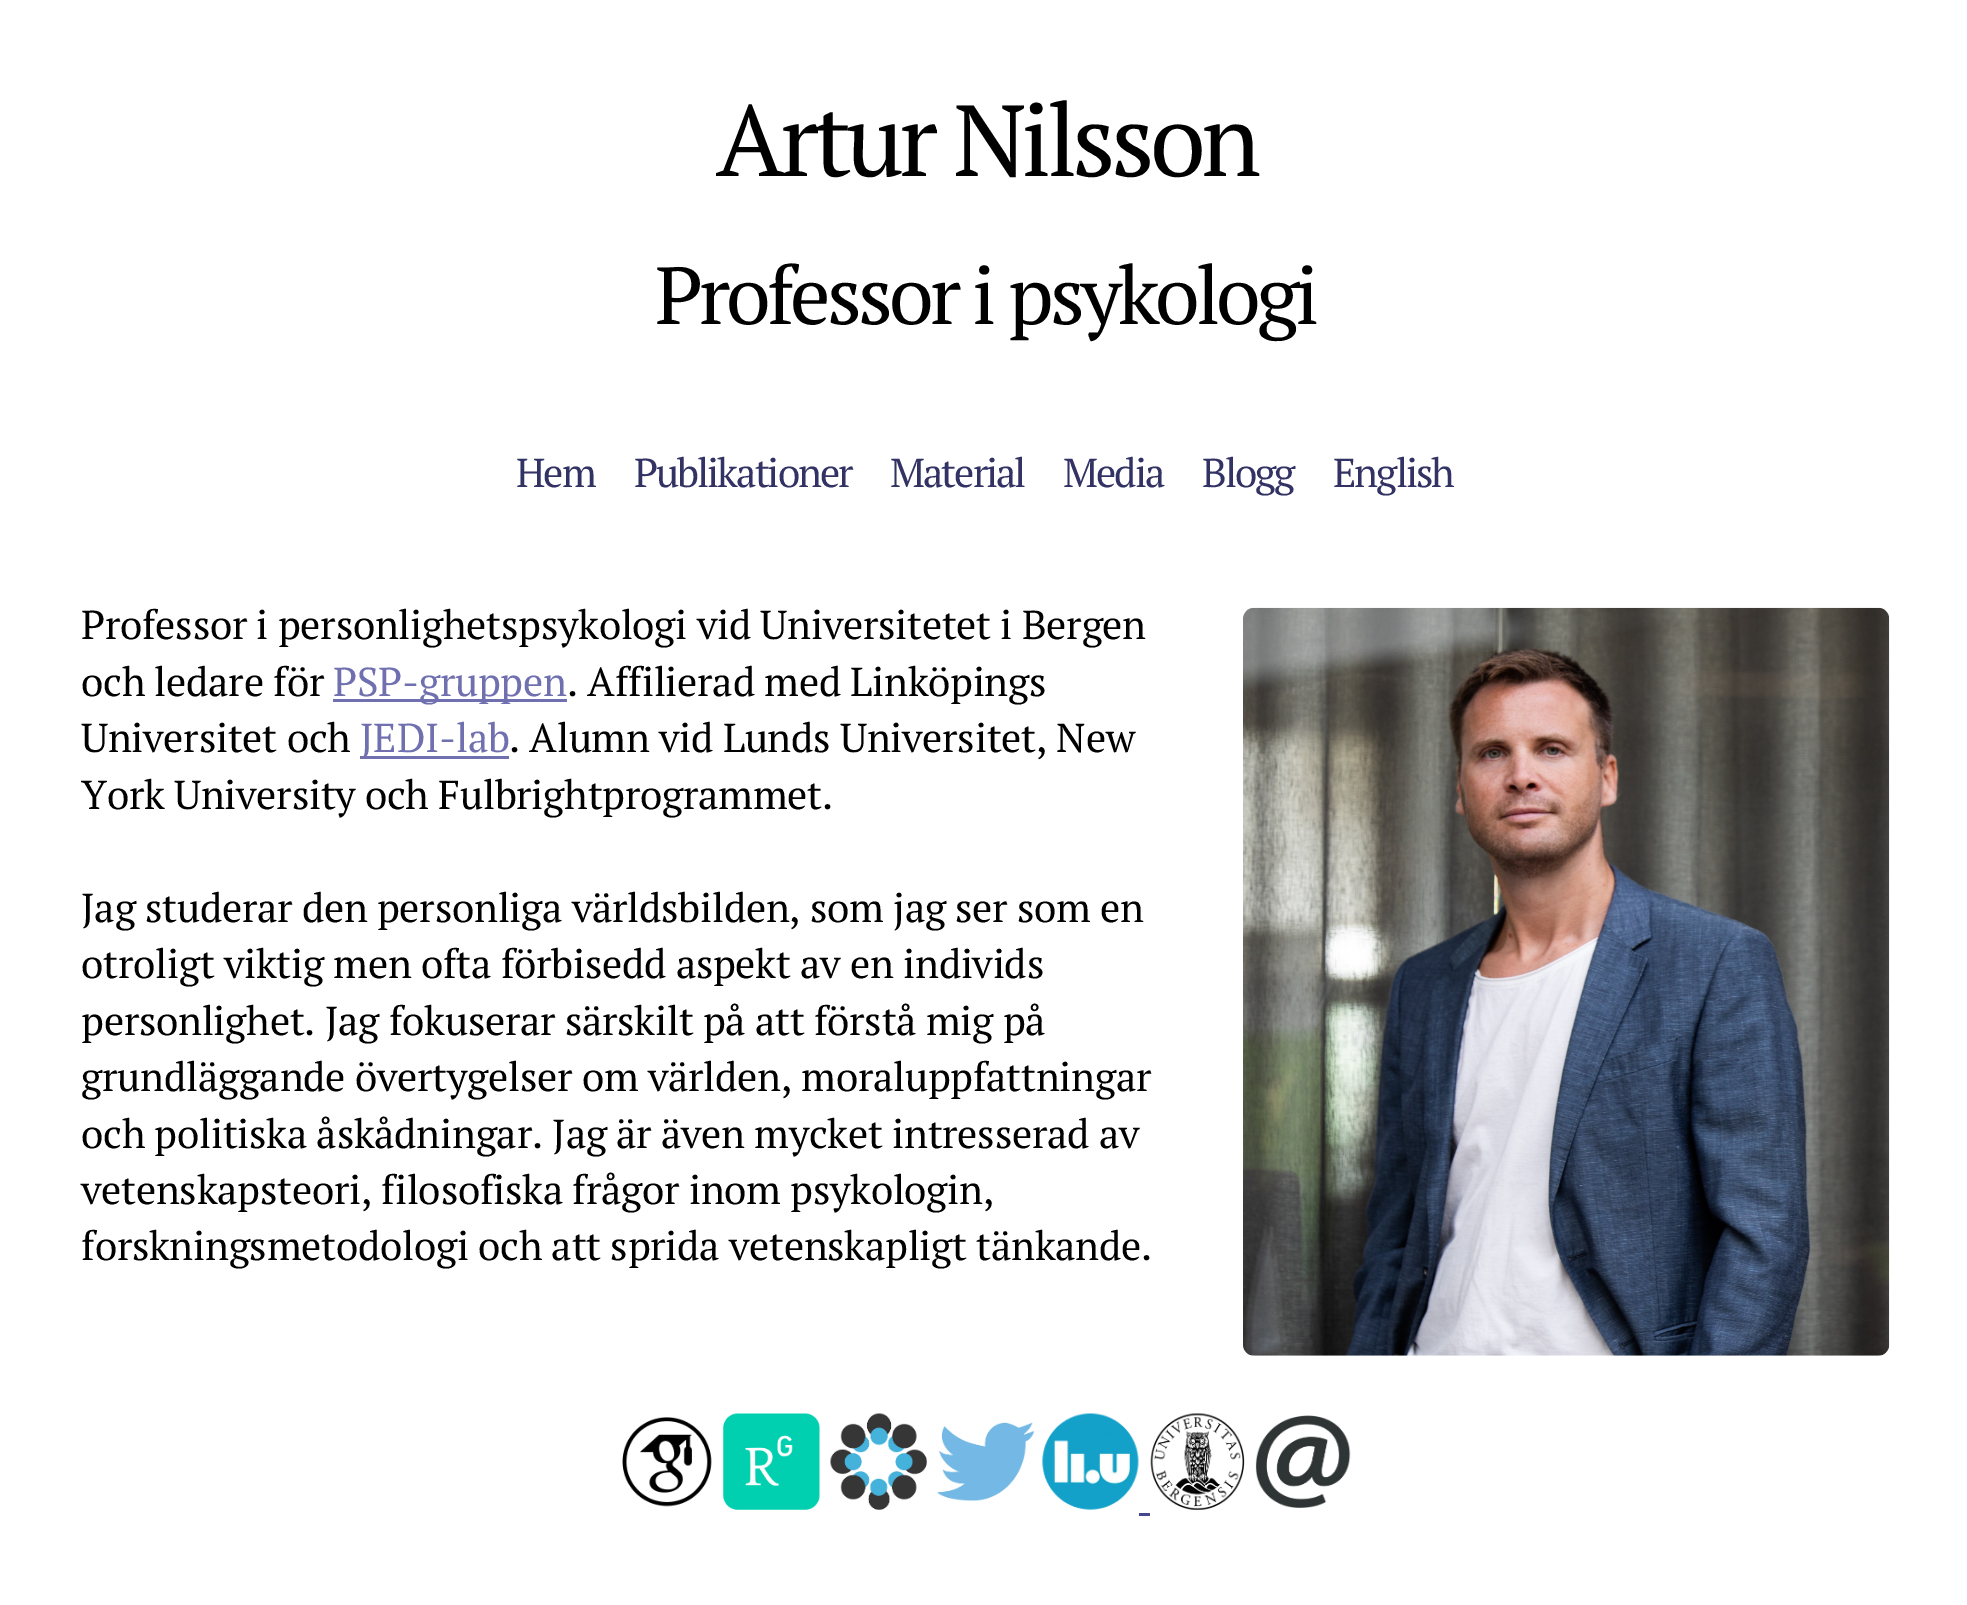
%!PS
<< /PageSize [1967 1605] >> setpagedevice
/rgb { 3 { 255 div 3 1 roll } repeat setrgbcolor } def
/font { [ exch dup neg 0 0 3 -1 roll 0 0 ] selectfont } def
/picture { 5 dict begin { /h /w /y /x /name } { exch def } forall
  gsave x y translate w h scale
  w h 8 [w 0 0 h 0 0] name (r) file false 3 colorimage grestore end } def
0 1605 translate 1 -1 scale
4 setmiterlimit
255 255 255 rgb
0 0 1967 1605 rectfill
(img_01.rgb) 1243 607 647 749 picture
112 112 176 rgb
333 699 234 3 rectfill
360 756 149 3 rectfill
(img_02.rgb) 622 1417 90 90 picture
(img_03.rgb) 723 1413 97 97 picture
(img_04.rgb) 830 1413 97 97 picture
(img_05.rgb) 937 1422 97 79 picture
(img_06.rgb) 1042 1413 97 97 picture
(img_07.rgb) 1150 1413 95 97 picture
(img_08.rgb) 1255 1415 96 93 picture
70 70 140 rgb
1139 1513 11 3 rectfill
/PTSerif-Regular 101 font
0 0 0 rgb
716 176 moveto -5 0 (Artur Nilsson) ashow
/PTSerif-Regular 80.75 font
655 324 moveto -4 0 (Professor i psykologi) ashow
/PTSerif-Regular 40.3 font
50 50 100 rgb
516 487 moveto -2 0 (Hem) ashow
634 487 moveto -2 0 (Publikationer) ashow
890 487 moveto -2 0 (Material) ashow
1063 487 moveto -2 0 (Media) ashow
1202 487 moveto -2 0 (Blogg) ashow
1333 487 moveto -2 0 (English) ashow
0 0 0 rgb
81 639 moveto -0.28 0 (Professor i personlighetspsykologi vid Universitetet i Bergen) ashow
81 696 moveto -0.28 0 (och ledare för) ashow
112 112 176 rgb
333 696 moveto -0.28 0 (PSP-gruppen) ashow
0 0 0 rgb
567 696 moveto -0.28 0 (. Affilierad med Linköpings) ashow
81 752 moveto -0.28 0 (Universitet och) ashow
112 112 176 rgb
360 752 moveto -0.28 0 (JEDI-lab) ashow
0 0 0 rgb
509 752 moveto -0.28 0 (. Alumn vid Lunds Universitet, New) ashow
81 809 moveto -0.28 0 (York University och Fulbrightprogrammet.) ashow
81 922 moveto -0.28 0 (Jag studerar den personliga världsbilden, som jag ser som en) ashow
81 978 moveto -0.28 0 (otroligt viktig men ofta förbisedd aspekt av en individs) ashow
81 1035 moveto -0.28 0 (personlighet. Jag fokuserar särskilt på att förstå mig på) ashow
81 1091 moveto -0.28 0 (grundläggande övertygelser om världen, moraluppfattningar) ashow
81 1148 moveto -0.28 0 (och politiska åskådningar. Jag är även mycket intresserad av) ashow
81 1204 moveto -0.28 0 (vetenskapsteori, filosofiska frågor inom psykologin,) ashow
81 1260 moveto -0.28 0 (forskningsmetodologi och att sprida vetenskapligt tänkande.) ashow
showpage
